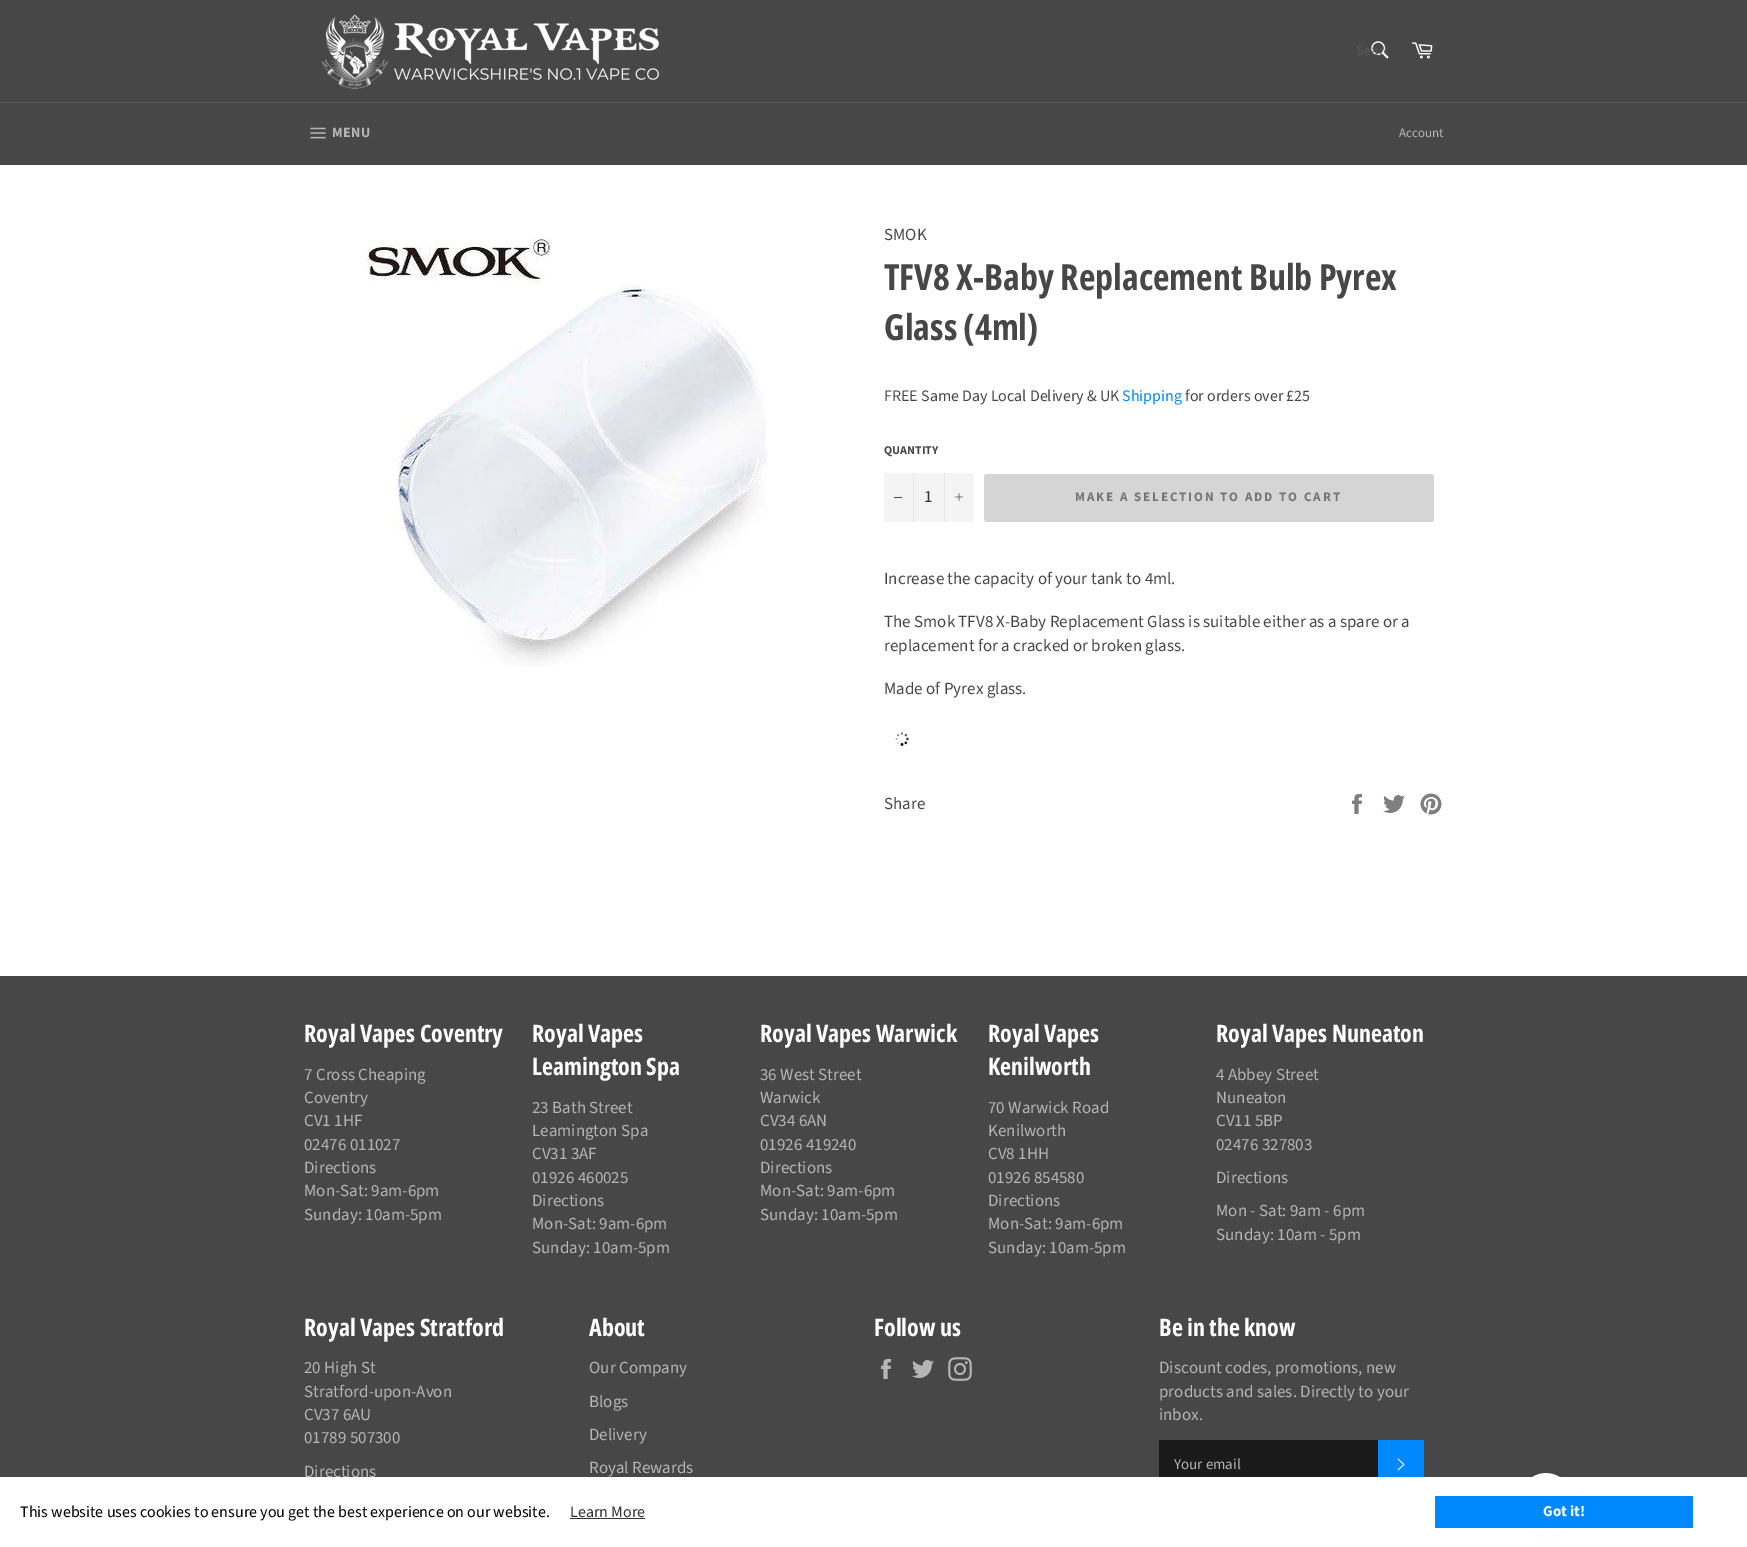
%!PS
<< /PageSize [1747 1547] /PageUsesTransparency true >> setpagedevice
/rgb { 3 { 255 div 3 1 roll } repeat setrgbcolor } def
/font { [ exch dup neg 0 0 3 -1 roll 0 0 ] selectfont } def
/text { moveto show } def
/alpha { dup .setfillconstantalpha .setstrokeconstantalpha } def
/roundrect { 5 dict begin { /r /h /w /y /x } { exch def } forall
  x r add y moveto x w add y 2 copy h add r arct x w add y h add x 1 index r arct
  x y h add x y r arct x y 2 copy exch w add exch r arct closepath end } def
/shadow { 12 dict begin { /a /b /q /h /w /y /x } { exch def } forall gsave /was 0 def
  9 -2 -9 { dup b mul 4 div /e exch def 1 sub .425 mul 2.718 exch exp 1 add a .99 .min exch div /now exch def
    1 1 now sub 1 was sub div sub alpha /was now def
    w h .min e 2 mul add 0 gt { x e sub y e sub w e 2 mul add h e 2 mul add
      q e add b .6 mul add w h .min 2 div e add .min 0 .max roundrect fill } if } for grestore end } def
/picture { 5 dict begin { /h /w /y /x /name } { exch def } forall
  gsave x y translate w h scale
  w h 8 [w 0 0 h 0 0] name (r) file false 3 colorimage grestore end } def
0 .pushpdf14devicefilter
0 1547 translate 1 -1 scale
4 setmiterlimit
255 255 255 rgb
0 0 1747 1547 rectfill
71 71 71 rgb
0 0 1747 102 rectfill
(img_01.rgb) 321 14 338 75 picture
(img_02.rgb) 1371 41 18 18 picture
(img_03.rgb) 1411 42 22 17 picture
0 103 1747 62 rectfill
84 84 84 rgb
0 102 1747 1 rectfill
(img_04.rgb) 310 127 16 12 picture
(img_05.rgb) 362 236 405 430 picture
244 244 244 rgb
884 473 90 49 rectfill
231 231 231 rgb
913 473 1 49 rectfill
71 71 71 rgb
894 497 8 1 rectfill
231 231 231 rgb
944 473 1 49 rectfill
(img_06.rgb) 955 493 8 8 picture
213 213 213 rgb
984 474 450 48 3 roundrect fill
(img_07.rgb) 895 732 14 14 picture
(img_08.rgb) 1352 794 10 20 picture
(img_09.rgb) 1383 795 22 18 picture
(img_10.rgb) 1420 793 22 22 picture
71 71 71 rgb
0 976 1747 501 rectfill
(img_11.rgb) 881 1359 10 20 picture
(img_12.rgb) 912 1360 22 18 picture
(img_13.rgb) 948 1357 24 24 picture
26 26 26 rgb
1159 1440 219 37 rectfill
0 136 255 rgb
1378 1440 46 37 rectfill
(img_14.rgb) 1397 1458 8 13 picture
0 0 0 rgb
1520 1473 56 56 28 4.5 0.07 shadow
(img_15.rgb) 1532 1473 28 4 picture
gsave
1356 40 32 21 rectclip
/SourceSansPro-Regular 15 font
88 88 88 rgb
(Searc) 1356 55 text
grestore
/SourceSansPro-Bold 14 font
181 181 181 rgb
332 137 moveto 0.5 0 (MENU) ashow
/SourceSansPro-Regular 13 font
(Account) 1399 137 text
/SourceSansPro-Regular 17 font
71 71 71 rgb
(SMOK) 884 240 text
/OpenSansCondensed-Bold 36 font
(TFV8 X-Baby Replacement Bulb Pyrex) 884 290 text
(Glass \(4ml\)) 884 340 text
/SourceSansPro-Regular 16 font
(FREE Same Day Local Delivery & UK) 884 401 text
0 136 255 rgb
(Shipping) 1122 401 text
71 71 71 rgb
(for orders over £25) 1185 401 text
/SourceSansPro-Bold 12 font
(QUANTITY) 884 454 text
/SourceSansPro-Regular 17 font
51 51 51 rgb
(1) 924 502 text
/SourceSansPro-Bold 13 font
117 117 117 rgb
1075 501 moveto 1.95 0 (MAKE A SELECTION TO ADD TO CART) ashow
/SourceSansPro-Regular 17 font
71 71 71 rgb
(Increase the capacity of your tank to 4ml.) 884 584 text
(The Smok TFV8 X-Baby Replacement Glass is suitable either as a spare or a) 884 627 text
(replacement for a cracked or broken glass.) 884 651 text
(Made of Pyrex glass.) 884 694 text
(Share) 884 809 text
/OpenSansCondensed-Bold 24 font
255 255 255 rgb
(Royal Vapes Coventry) 304 1042 text
/SourceSansPro-Regular 17 font
181 181 181 rgb
(7 Cross Cheaping) 304 1080 text
(Coventry) 304 1103 text
(CV1 1HF) 304 1126 text
(02476 011027) 304 1150 text
(Directions) 304 1173 text
(Mon-Sat: 9am-6pm) 304 1196 text
(Sunday: 10am-5pm) 304 1220 text
/OpenSansCondensed-Bold 24 font
255 255 255 rgb
(Royal Vapes) 532 1042 text
(Leamington Spa) 532 1075 text
/SourceSansPro-Regular 17 font
181 181 181 rgb
(23 Bath Street) 532 1113 text
(Leamington Spa) 532 1136 text
(CV31 3AF) 532 1159 text
(01926 460025) 532 1183 text
(Directions) 532 1206 text
(Mon-Sat: 9am-6pm) 532 1229 text
(Sunday: 10am-5pm) 532 1253 text
/OpenSansCondensed-Bold 24 font
255 255 255 rgb
(Royal Vapes Warwick) 760 1042 text
/SourceSansPro-Regular 17 font
181 181 181 rgb
(36 West Street) 760 1080 text
(Warwick) 760 1103 text
(CV34 6AN) 760 1126 text
(01926 419240) 760 1150 text
(Directions) 760 1173 text
(Mon-Sat: 9am-6pm) 760 1196 text
(Sunday: 10am-5pm) 760 1220 text
/OpenSansCondensed-Bold 24 font
255 255 255 rgb
(Royal Vapes) 988 1042 text
(Kenilworth) 988 1075 text
/SourceSansPro-Regular 17 font
181 181 181 rgb
(70 Warwick Road) 988 1113 text
(Kenilworth) 988 1136 text
(CV8 1HH) 988 1159 text
(01926 854580) 988 1183 text
(Directions) 988 1206 text
(Mon-Sat: 9am-6pm) 988 1229 text
(Sunday: 10am-5pm) 988 1253 text
/OpenSansCondensed-Bold 24 font
255 255 255 rgb
(Royal Vapes Nuneaton) 1216 1042 text
/SourceSansPro-Regular 17 font
181 181 181 rgb
(4 Abbey Street) 1216 1080 text
(Nuneaton) 1216 1103 text
(CV11 5BP) 1216 1126 text
(02476 327803) 1216 1150 text
(Directions) 1216 1183 text
(Mon - Sat: 9am - 6pm) 1216 1216 text
(Sunday: 10am - 5pm) 1216 1240 text
/OpenSansCondensed-Bold 24 font
255 255 255 rgb
(Royal Vapes Stratford) 304 1336 text
/SourceSansPro-Regular 17 font
181 181 181 rgb
(20 High St) 304 1373 text
(Stratford-upon-Avon) 304 1397 text
(CV37 6AU) 304 1420 text
(01789 507300) 304 1443 text
(Directions) 304 1477 text
/OpenSansCondensed-Bold 24 font
255 255 255 rgb
(About) 589 1336 text
/SourceSansPro-Regular 17 font
181 181 181 rgb
(Our Company) 589 1373 text
(Blogs) 589 1407 text
(Delivery) 589 1440 text
(Royal Rewards) 589 1473 text
/OpenSansCondensed-Bold 24 font
255 255 255 rgb
(Follow us) 874 1336 text
(Be in the know) 1159 1336 text
/SourceSansPro-Regular 17 font
181 181 181 rgb
(Discount codes, promotions, new) 1159 1373 text
(products and sales. Directly to your) 1159 1397 text
(inbox.) 1159 1420 text
/SourceSansPro-Regular 15 font
(Your email) 1174 1469 text
255 255 255 rgb
328 1477 1252 56 rectfill
/SourceSansPro-Regular 16 font
0 0 0 rgb
(This website uses cookies to ensure you get the best experience on our website.) 20 1517 text
51 51 51 rgb
(Learn More) 570 1517 text
570 1518 75 1 rectfill
0 136 255 rgb
1435 1496 258 32 rectfill
/SourceSansPro-Bold 15 font
255 255 255 rgb
(Got it!) 1543 1516 text
.poppdf14devicefilter showpage
